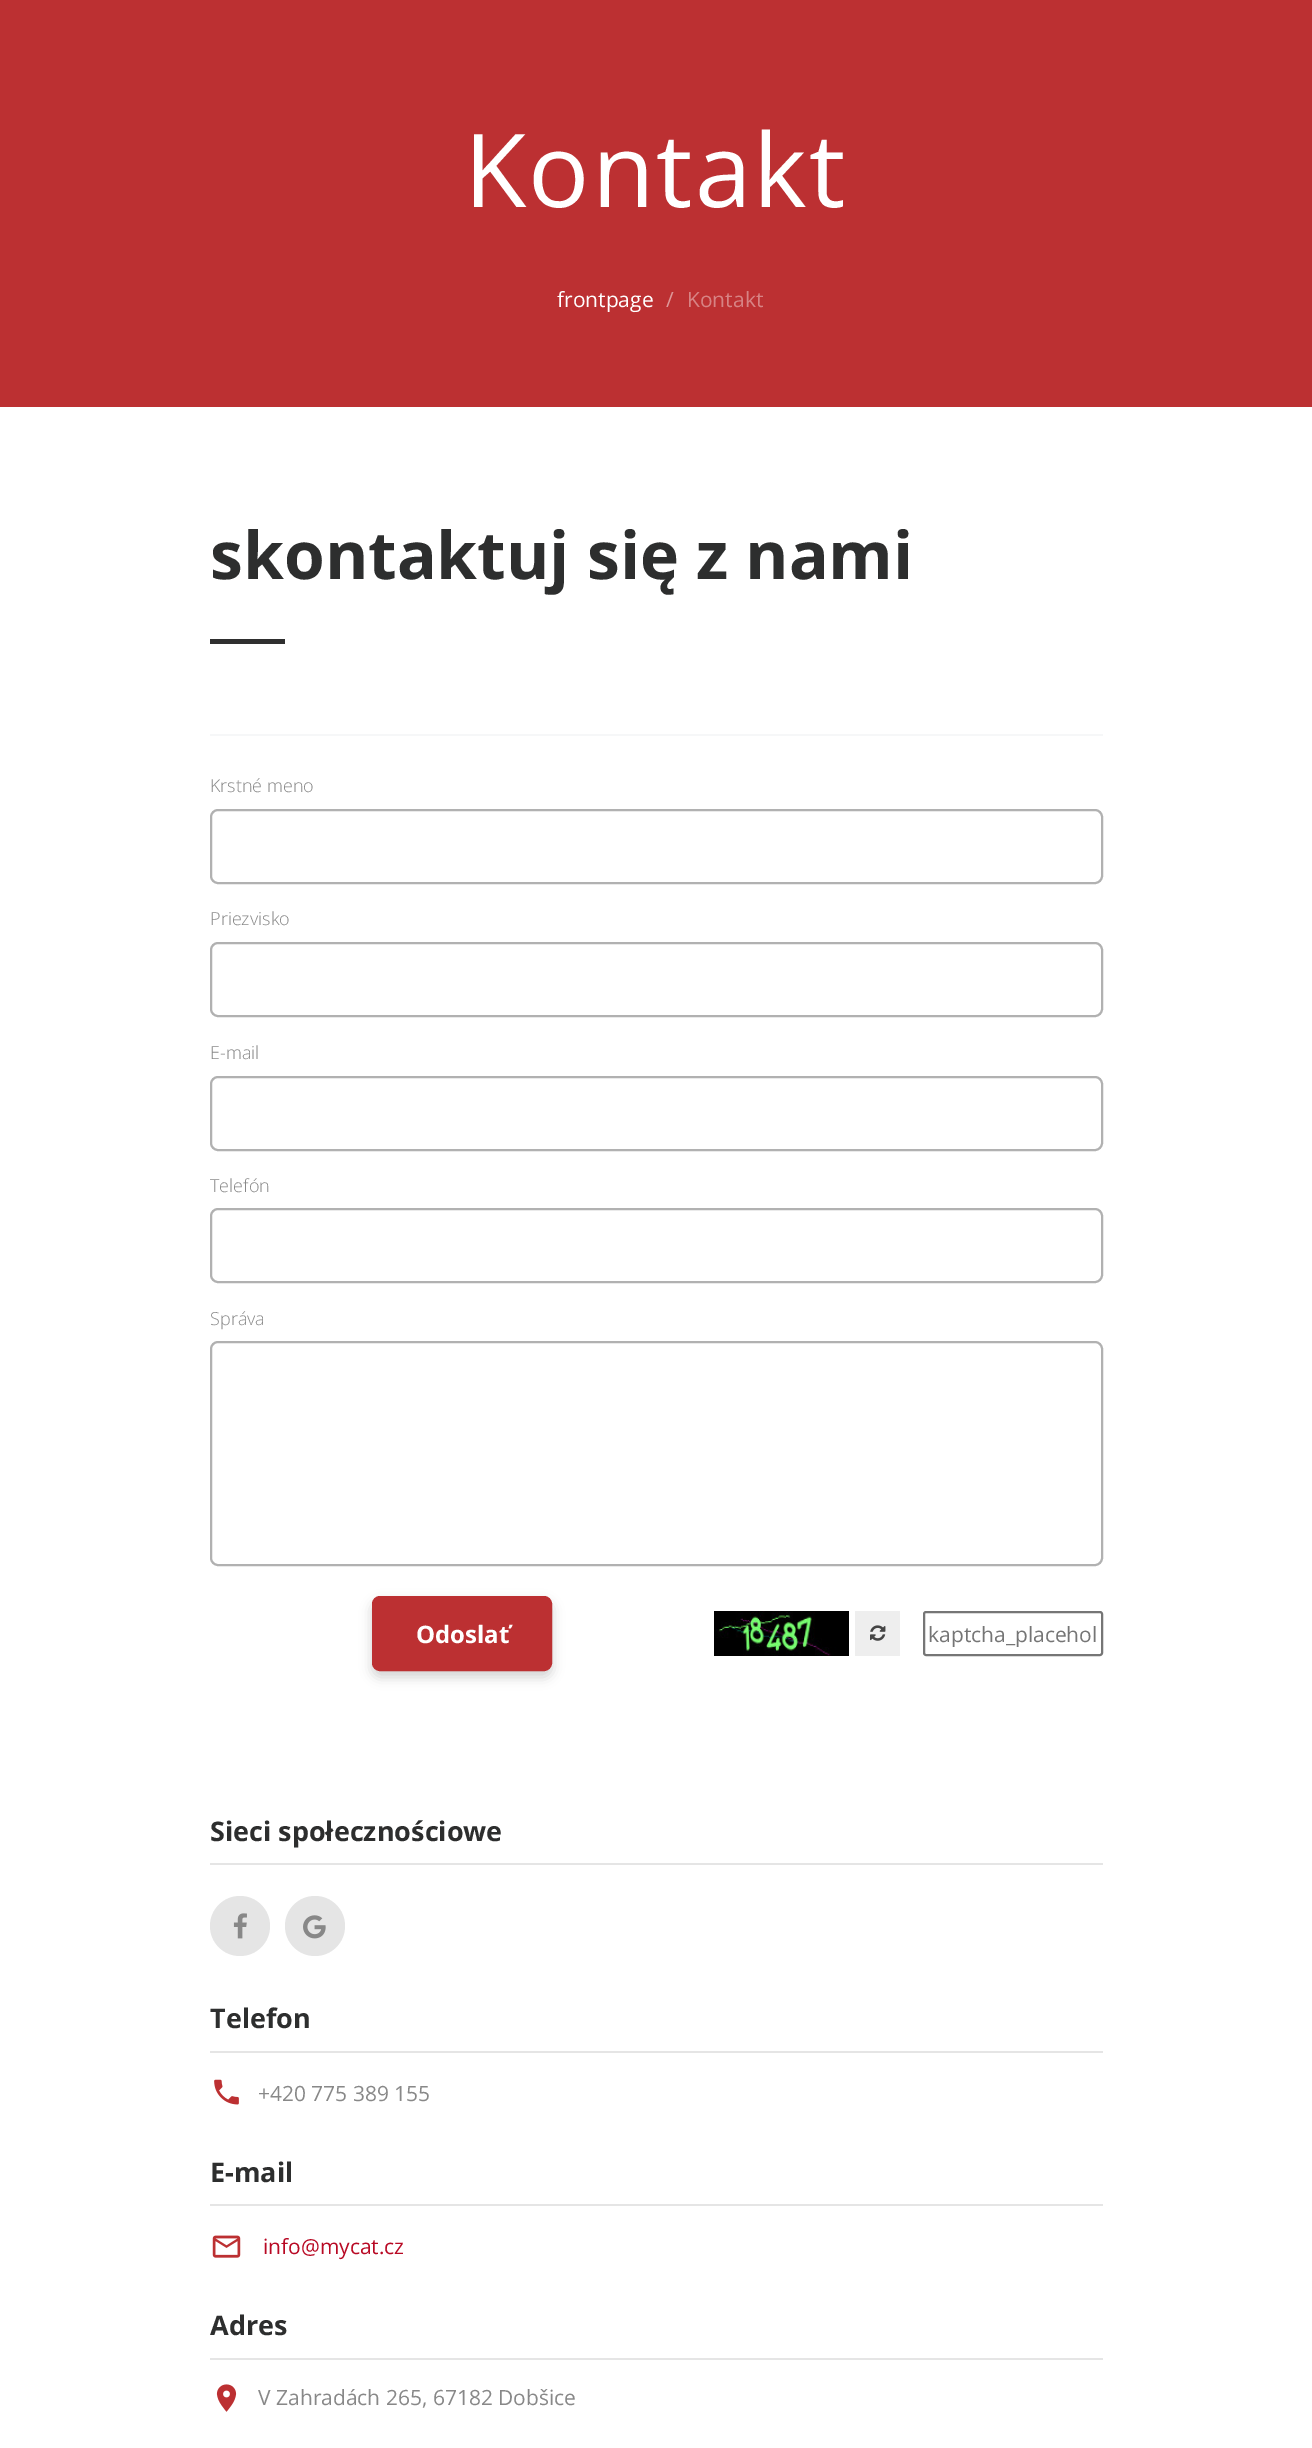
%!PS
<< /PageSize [1312 2448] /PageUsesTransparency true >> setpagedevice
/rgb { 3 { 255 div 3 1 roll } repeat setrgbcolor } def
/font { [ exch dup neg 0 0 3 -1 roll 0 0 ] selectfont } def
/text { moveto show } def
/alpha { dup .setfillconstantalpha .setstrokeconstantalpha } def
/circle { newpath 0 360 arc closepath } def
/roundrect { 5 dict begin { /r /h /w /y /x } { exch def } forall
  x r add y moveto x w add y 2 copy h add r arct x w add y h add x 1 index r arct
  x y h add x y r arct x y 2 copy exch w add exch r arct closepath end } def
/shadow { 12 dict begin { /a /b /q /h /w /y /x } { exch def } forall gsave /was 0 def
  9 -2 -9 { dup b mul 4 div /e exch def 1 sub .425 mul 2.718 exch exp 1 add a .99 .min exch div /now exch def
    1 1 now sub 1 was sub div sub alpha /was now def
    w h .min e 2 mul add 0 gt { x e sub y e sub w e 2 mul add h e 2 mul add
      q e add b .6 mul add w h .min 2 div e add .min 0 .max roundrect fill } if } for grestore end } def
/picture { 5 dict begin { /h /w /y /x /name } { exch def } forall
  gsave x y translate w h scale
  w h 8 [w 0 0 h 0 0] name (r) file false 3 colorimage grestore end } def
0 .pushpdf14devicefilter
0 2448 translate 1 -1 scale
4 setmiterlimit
255 255 255 rgb
0 0 1312 2448 rectfill
188 48 50 rgb
0 0 1312 407 rectfill
47 47 47 rgb
210 639 75 5 rectfill
246 247 248 rgb
210 734 893 2 rectfill
177 177 177 rgb
2 setlinewidth
211 810 891 73 7 roundrect stroke
211 943 891 73 7 roundrect stroke
211 1077 891 73 7 roundrect stroke
211 1209 891 73 7 roundrect stroke
211 1342 891 223 7 roundrect stroke
0 0 0 rgb
372 1602 180 75 8 6 0.18 shadow
188 48 50 rgb
373.5 1597.5 177 72 6.5 roundrect gsave fill grestore
3 setlinewidth
stroke
(img_01.rgb) 714 1611 135 45 picture
238 238 238 rgb
855 1611 45 45 rectfill
(img_02.rgb) 870 1625 16 16 picture
118 118 118 rgb
2 setlinewidth
924 1612 178 43 2 roundrect stroke
229 229 229 rgb
210 1863 893 2 rectfill
240 1926 30 circle fill
(img_03.rgb) 233 1913 14 26 picture
315 1926 30 circle fill
(img_04.rgb) 303 1915 23 24 picture
210 2051 893 2 rectfill
(img_05.rgb) 214 2079 25 26 picture
210 2204 893 2 rectfill
(img_06.rgb) 212 2235 29 23 picture
210 2358 893 2 rectfill
(img_07.rgb) 216 2384 21 28 picture
/OpenSans-Regular 102 font
255 255 255 rgb
464 207 moveto 2 0 (Kontakt) ashow
/OpenSans-Regular 21 font
(frontpage) 557 307 text
222 152 153 rgb
(/) 666 307 text
215 131 132 rgb
(Kontakt) 687 307 text
/OpenSans-Bold 66 font
45 46 46 rgb
(skontaktuj się z nami) 210 579 text
/OpenSans-Light 18 font
136 136 136 rgb
(Krstné meno) 210 792 text
(Priezvisko) 210 925 text
(E-mail) 210 1059 text
(Telefón) 210 1192 text
(Správa) 210 1325 text
/OpenSans-Bold 24 font
255 255 255 rgb
(Odoslať) 416 1643 text
/OpenSans-Regular 21 font
117 117 117 rgb
(kaptcha_placehol) 928 1642 text
/OpenSans-Bold 27 font
45 46 46 rgb
(Sieci społecznościowe) 210 1841 text
(Telefon) 210 2028 text
/OpenSans-Regular 21 font
136 136 136 rgb
(+420 775 389 155) 258 2101 text
/OpenSans-Bold 27 font
45 46 46 rgb
(E-mail) 210 2182 text
/OpenSans-Regular 21 font
184 9 36 rgb
(info@mycat.cz) 263 2254 text
/OpenSans-Bold 27 font
45 46 46 rgb
(Adres) 210 2335 text
/OpenSans-Regular 21 font
136 136 136 rgb
(V Zahradách 265, 67182 Dobšice) 258 2405 text
.poppdf14devicefilter showpage
